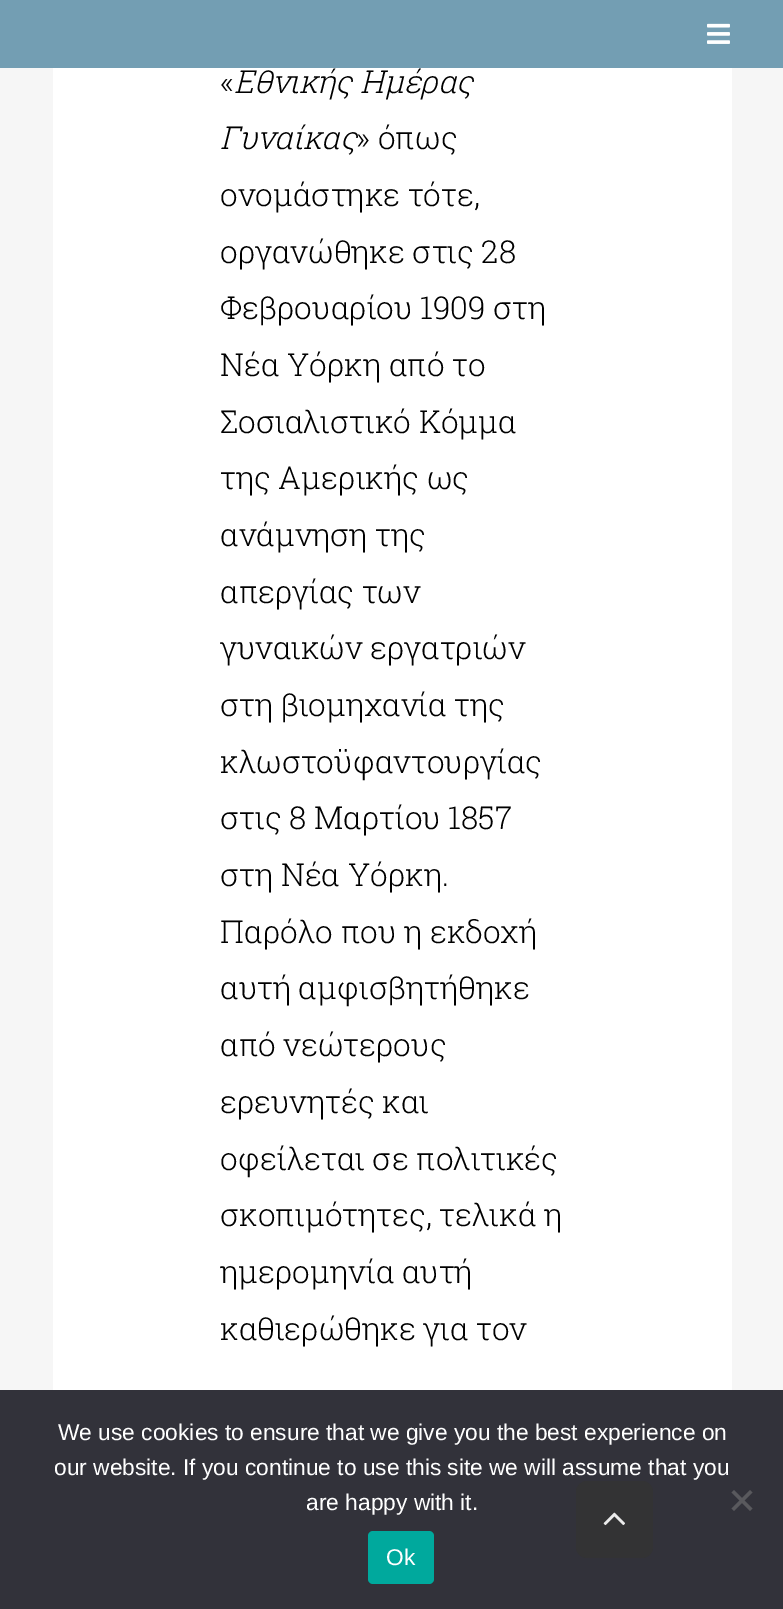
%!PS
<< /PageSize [783 1609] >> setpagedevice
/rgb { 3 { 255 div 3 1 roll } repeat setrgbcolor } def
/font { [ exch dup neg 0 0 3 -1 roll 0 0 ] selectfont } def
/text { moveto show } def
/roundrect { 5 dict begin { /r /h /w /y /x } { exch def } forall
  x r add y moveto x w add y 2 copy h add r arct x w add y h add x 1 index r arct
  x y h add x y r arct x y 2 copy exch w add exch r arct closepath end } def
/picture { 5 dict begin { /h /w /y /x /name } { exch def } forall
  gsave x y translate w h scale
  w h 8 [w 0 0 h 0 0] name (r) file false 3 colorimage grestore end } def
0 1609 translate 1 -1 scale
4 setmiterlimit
246 246 246 rgb
0 0 783 1609 rectfill
115 158 179 rgb
0 0 783 68 rectfill
(img_01.rgb) 707 23 23 21 picture
255 255 255 rgb
53 68 679 1322 rectfill
50 50 58 rgb
0 1390 783 219 rectfill
89 89 93 rgb
750 1490 moveto 2.5 2.5 rlineto -18.5 18.5 rlineto -2.5 -2.5 rlineto closepath fill
731.5 1492.5 moveto 2.5 -2.5 rlineto 18.5 18.5 rlineto -2.5 2.5 rlineto closepath fill
0 169 157 rgb
368 1531 66 53 5 roundrect fill
51 51 52 rgb
576 1481 77 77 11 roundrect fill
(img_02.rgb) 603 1512 22 14 picture
/RobotoSlab-Light 31.5 font
0 0 0 rgb
(«) 220 93 text
/RobotoSlab-LightItalic 31.5 font
(Εθνικής Ημέρας) 234 93 text
(Γυναίκας) 220 149 text
/RobotoSlab-Light 31.5 font
(» όπως) 356 149 text
(ονομάστηκε τότε,) 220 206 text
(οργανώθηκε στις 28) 220 263 text
(Φεβρουαρίου 1909 στη) 220 319 text
(Νέα Υόρκη από το) 220 376 text
(Σοσιαλιστικό Κόμμα) 220 433 text
(της Αμερικής ως) 220 489 text
(ανάμνηση της) 220 546 text
(απεργίας των) 220 603 text
(γυναικών εργατριών) 220 659 text
(στη βιομηχανία της) 220 716 text
(κλωστοϋφαντουργίας) 220 773 text
(στις 8 Μαρτίου 1857) 220 829 text
(στη Νέα Υόρκη.) 220 886 text
(Παρόλο που η εκδοχή) 220 943 text
(αυτή αμφισβητήθηκε) 220 999 text
(από νεώτερους) 220 1056 text
(ερευνητές και) 220 1113 text
(οφείλεται σε πολιτικές) 220 1170 text
(σκοπιμότητες, τελικά η) 220 1226 text
(ημερομηνία αυτή) 220 1283 text
(καθιερώθηκε για τον) 220 1340 text
/LiberationSans-Regular 22.75 font
255 255 255 rgb
(We use cookies to ensure that we give you the best experience on) 58 1440 text
(our website. If you continue to use this site we will assume that you) 54 1475 text
(are happy with it.) 306 1510 text
(Ok) 386 1565 text
showpage
